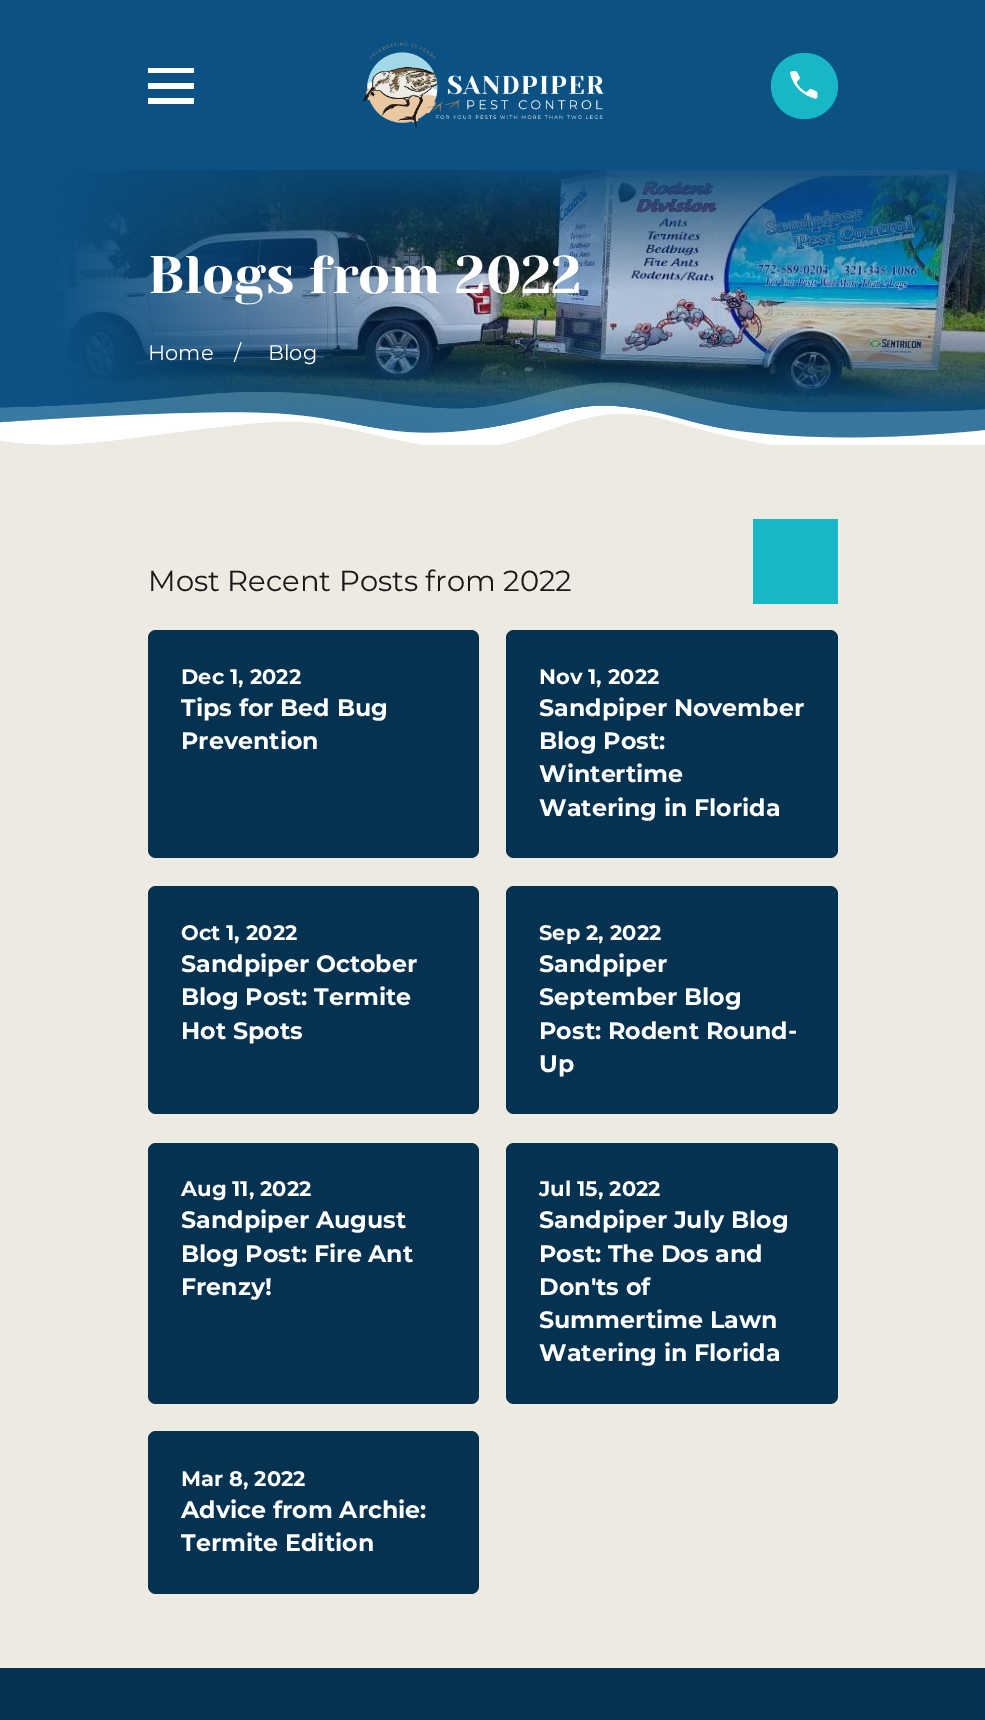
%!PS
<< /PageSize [985 1720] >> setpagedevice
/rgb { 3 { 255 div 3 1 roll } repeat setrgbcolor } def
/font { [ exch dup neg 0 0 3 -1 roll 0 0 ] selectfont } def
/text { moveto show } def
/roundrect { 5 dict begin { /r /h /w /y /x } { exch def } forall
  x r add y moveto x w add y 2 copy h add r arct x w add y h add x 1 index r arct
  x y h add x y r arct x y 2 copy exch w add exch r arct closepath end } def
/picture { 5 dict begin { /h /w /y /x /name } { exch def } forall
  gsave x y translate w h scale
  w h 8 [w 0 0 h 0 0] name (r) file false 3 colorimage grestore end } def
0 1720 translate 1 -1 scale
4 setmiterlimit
237 234 226 rgb
0 0 985 1720 rectfill
11 81 132 rgb
0 0 985 170 rectfill
255 255 255 rgb
148 68 moveto 0 5 rlineto 46 0 rlineto 0 -5 rlineto closepath 148 83 moveto 0 6 rlineto 46 0 rlineto 0 -6 rlineto closepath 148 98 moveto 0 6 rlineto 46 0 rlineto 0 -6 rlineto closepath fill
(img_01.rgb) 362 42 242 86 picture
23 183 199 rgb
771 53 67 66 33 roundrect fill
(img_02.rgb) 790 71 28 28 picture
(img_03.rgb) 0 170 985 275 picture
753 519 85 85 rectfill
5 50 81 rgb
148 630 331 228 8 roundrect fill
506 630 332 228 8 roundrect fill
148 886 331 228 8 roundrect fill
506 886 332 228 8 roundrect fill
148 1143 331 261 8 roundrect fill
506 1143 332 261 8 roundrect fill
148 1431 331 163 8 roundrect fill
0 1668 985 52 rectfill
/YesevaOne-Regular 52.75 font
255 255 255 rgb
(Blogs from 2022) 148 293 text
/Montserrat-Regular 21 font
(Home) 148 360 text
(/) 234 360 text
(Blog) 268 360 text
/Montserrat-Regular 29 font
25 25 25 rgb
(Most Recent Posts from 2022) 148 591 text
/Montserrat-Bold 21 font
255 255 255 rgb
(Dec 1, 2022) 181 684 text
/Montserrat-Bold 23.75 font
(Tips for Bed Bug) 181 716 text
(Prevention) 181 749 text
/Montserrat-Bold 21 font
(Nov 1, 2022) 539 684 text
/Montserrat-Bold 23.75 font
(Sandpiper November) 539 716 text
(Blog Post:) 539 749 text
(Wintertime) 539 782 text
(Watering in Florida) 539 816 text
/Montserrat-Bold 21 font
(Oct 1, 2022) 181 940 text
/Montserrat-Bold 23.75 font
(Sandpiper October) 181 972 text
(Blog Post: Termite) 181 1005 text
(Hot Spots) 181 1039 text
/Montserrat-Bold 21 font
(Sep 2, 2022) 539 940 text
/Montserrat-Bold 23.75 font
(Sandpiper) 539 972 text
(September Blog) 539 1005 text
(Post: Rodent Round-) 539 1039 text
(Up) 539 1072 text
/Montserrat-Bold 21 font
(Aug 11, 2022) 181 1196 text
/Montserrat-Bold 23.75 font
(Sandpiper August) 181 1228 text
(Blog Post: Fire Ant) 181 1262 text
(Frenzy!) 181 1295 text
/Montserrat-Bold 21 font
(Jul 15, 2022) 539 1196 text
/Montserrat-Bold 23.75 font
(Sandpiper July Blog) 539 1228 text
(Post: The Dos and) 539 1262 text
(Don'ts of) 539 1295 text
(Summertime Lawn) 539 1328 text
(Watering in Florida) 539 1361 text
/Montserrat-Bold 21 font
(Mar 8, 2022) 181 1486 text
/Montserrat-Bold 23.75 font
(Advice from Archie:) 181 1518 text
(Termite Edition) 181 1551 text
showpage
